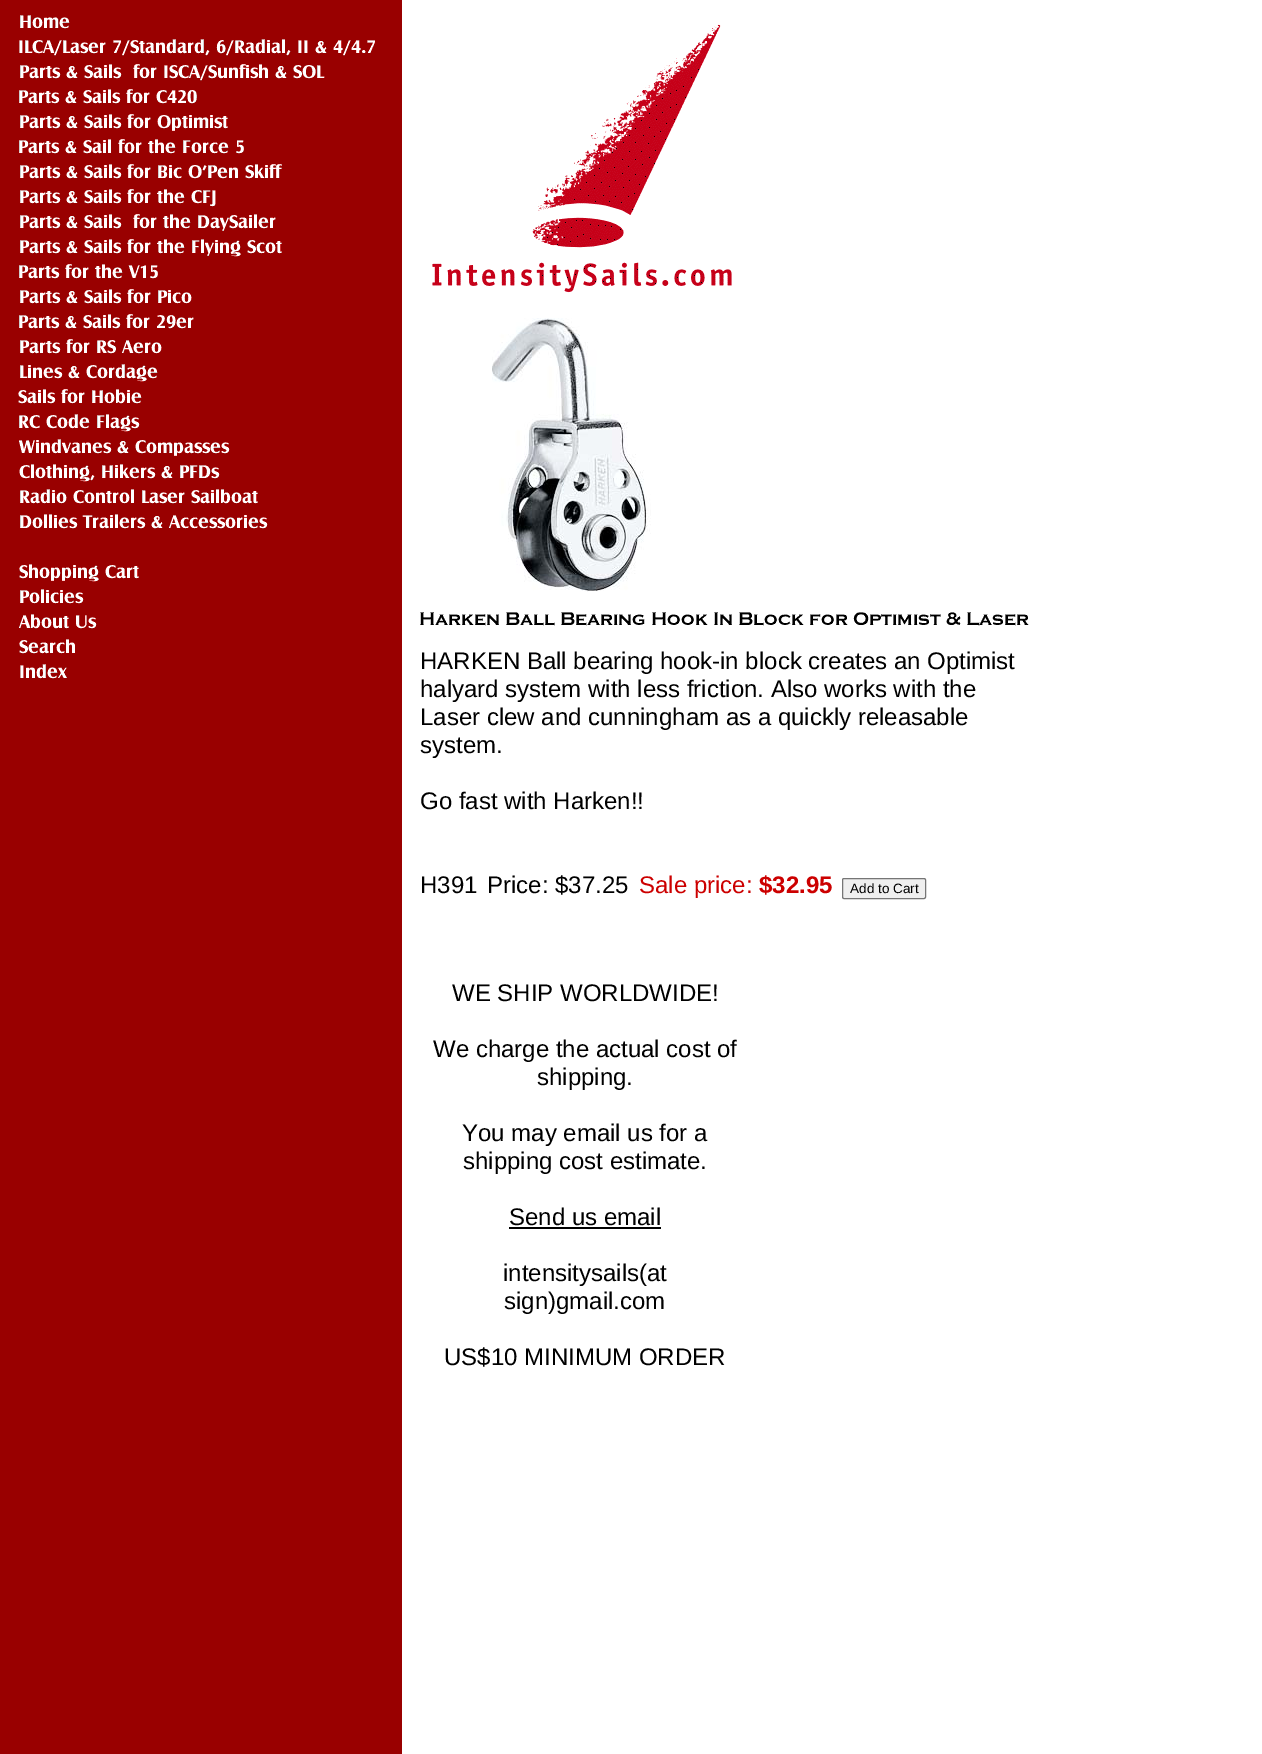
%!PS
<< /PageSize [1262 1754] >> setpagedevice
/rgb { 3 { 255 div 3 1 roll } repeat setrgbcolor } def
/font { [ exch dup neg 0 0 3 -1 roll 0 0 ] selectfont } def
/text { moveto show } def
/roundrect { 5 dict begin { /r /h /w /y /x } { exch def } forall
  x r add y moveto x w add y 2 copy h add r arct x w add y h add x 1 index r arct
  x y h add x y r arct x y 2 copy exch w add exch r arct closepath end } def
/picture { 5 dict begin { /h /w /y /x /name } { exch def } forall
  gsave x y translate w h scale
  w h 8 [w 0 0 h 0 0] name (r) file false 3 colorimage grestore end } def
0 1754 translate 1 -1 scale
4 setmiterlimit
255 255 255 rgb
0 0 1262 1754 rectfill
153 0 0 rgb
0 0 402 1754 rectfill
(img_01.rgb) 18 15 357 664 picture
(img_02.rgb) 432 24 300 269 picture
(img_03.rgb) 492 318 159 274 picture
(img_04.rgb) 420 612 609 14 picture
239 239 239 rgb
842.5 878.5 83 20 1.5 roundrect gsave fill grestore
118 118 118 rgb
stroke
0 0 0 rgb
509 1227 152 2 rectfill
/LiberationSans-Regular 24 font
(HARKEN Ball bearing hook-in block creates an Optimist) 420 669 text
(halyard system with less friction. Also works with the) 420 697 text
(Laser clew and cunningham as a quickly releasable) 420 725 text
(system.) 420 753 text
(Go fast with Harken!!) 420 809 text
(H391) 420 893 text
(Price: $37.25) 487 893 text
204 0 0 rgb
(Sale price:) 639 893 text
/LiberationSans-Bold 24 font
($32.95) 759 893 text
/LiberationSans-Regular 13.5 font
0 0 0 rgb
(Add to Cart) 850 893 text
/LiberationSans-Regular 24 font
(WE SHIP WORLDWIDE!) 452 1001 text
(We charge the actual cost of) 433 1057 text
(shipping.) 537 1085 text
(You may email us for a) 462 1141 text
(shipping cost estimate.) 463 1169 text
(Send us email) 509 1225 text
(intensitysails\(at) 503 1281 text
(sign\)gmail.com) 504 1309 text
(US$10 MINIMUM ORDER) 444 1365 text
showpage
